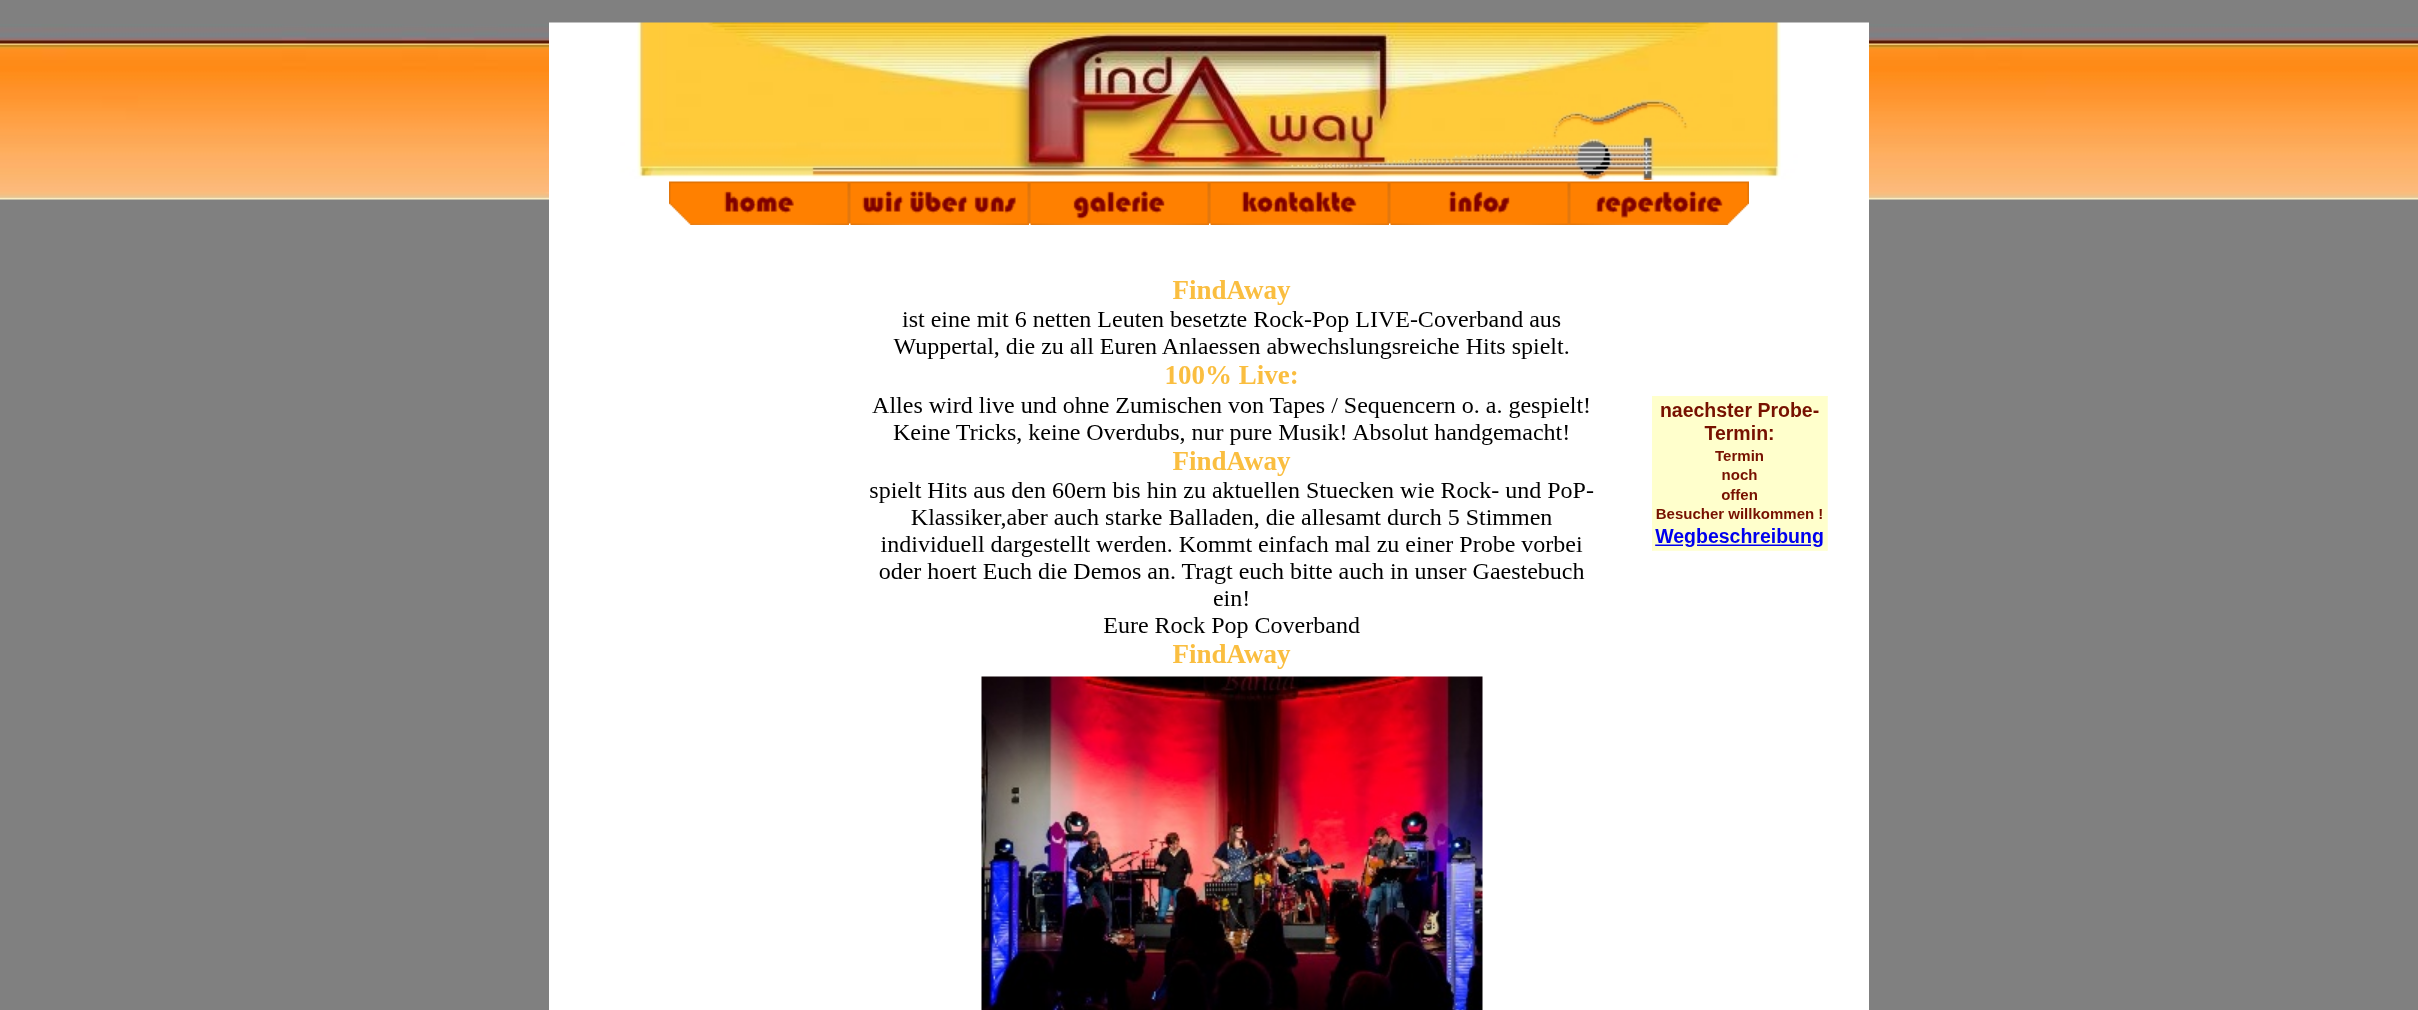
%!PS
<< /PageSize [2418 1010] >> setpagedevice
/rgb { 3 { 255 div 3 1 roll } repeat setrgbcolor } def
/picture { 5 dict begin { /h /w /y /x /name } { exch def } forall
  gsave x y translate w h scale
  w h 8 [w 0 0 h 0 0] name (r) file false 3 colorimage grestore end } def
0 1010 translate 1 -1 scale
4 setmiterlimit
128 128 128 rgb
0 0 2418 1010 rectfill
(img_01.rgb) 0 24 2418 176 picture
(img_02.rgb) 549 22 1320 158 picture
255 255 255 rgb
549 180 1320 830 rectfill
(img_03.rgb) 669 181 180 44 picture
(img_04.rgb) 849 181 180 44 picture
(img_05.rgb) 1029 181 180 44 picture
(img_06.rgb) 1209 181 180 44 picture
(img_07.rgb) 1389 181 180 44 picture
(img_08.rgb) 1569 181 180 44 picture
(img_09.rgb) 870 246 958 764 picture
showpage
